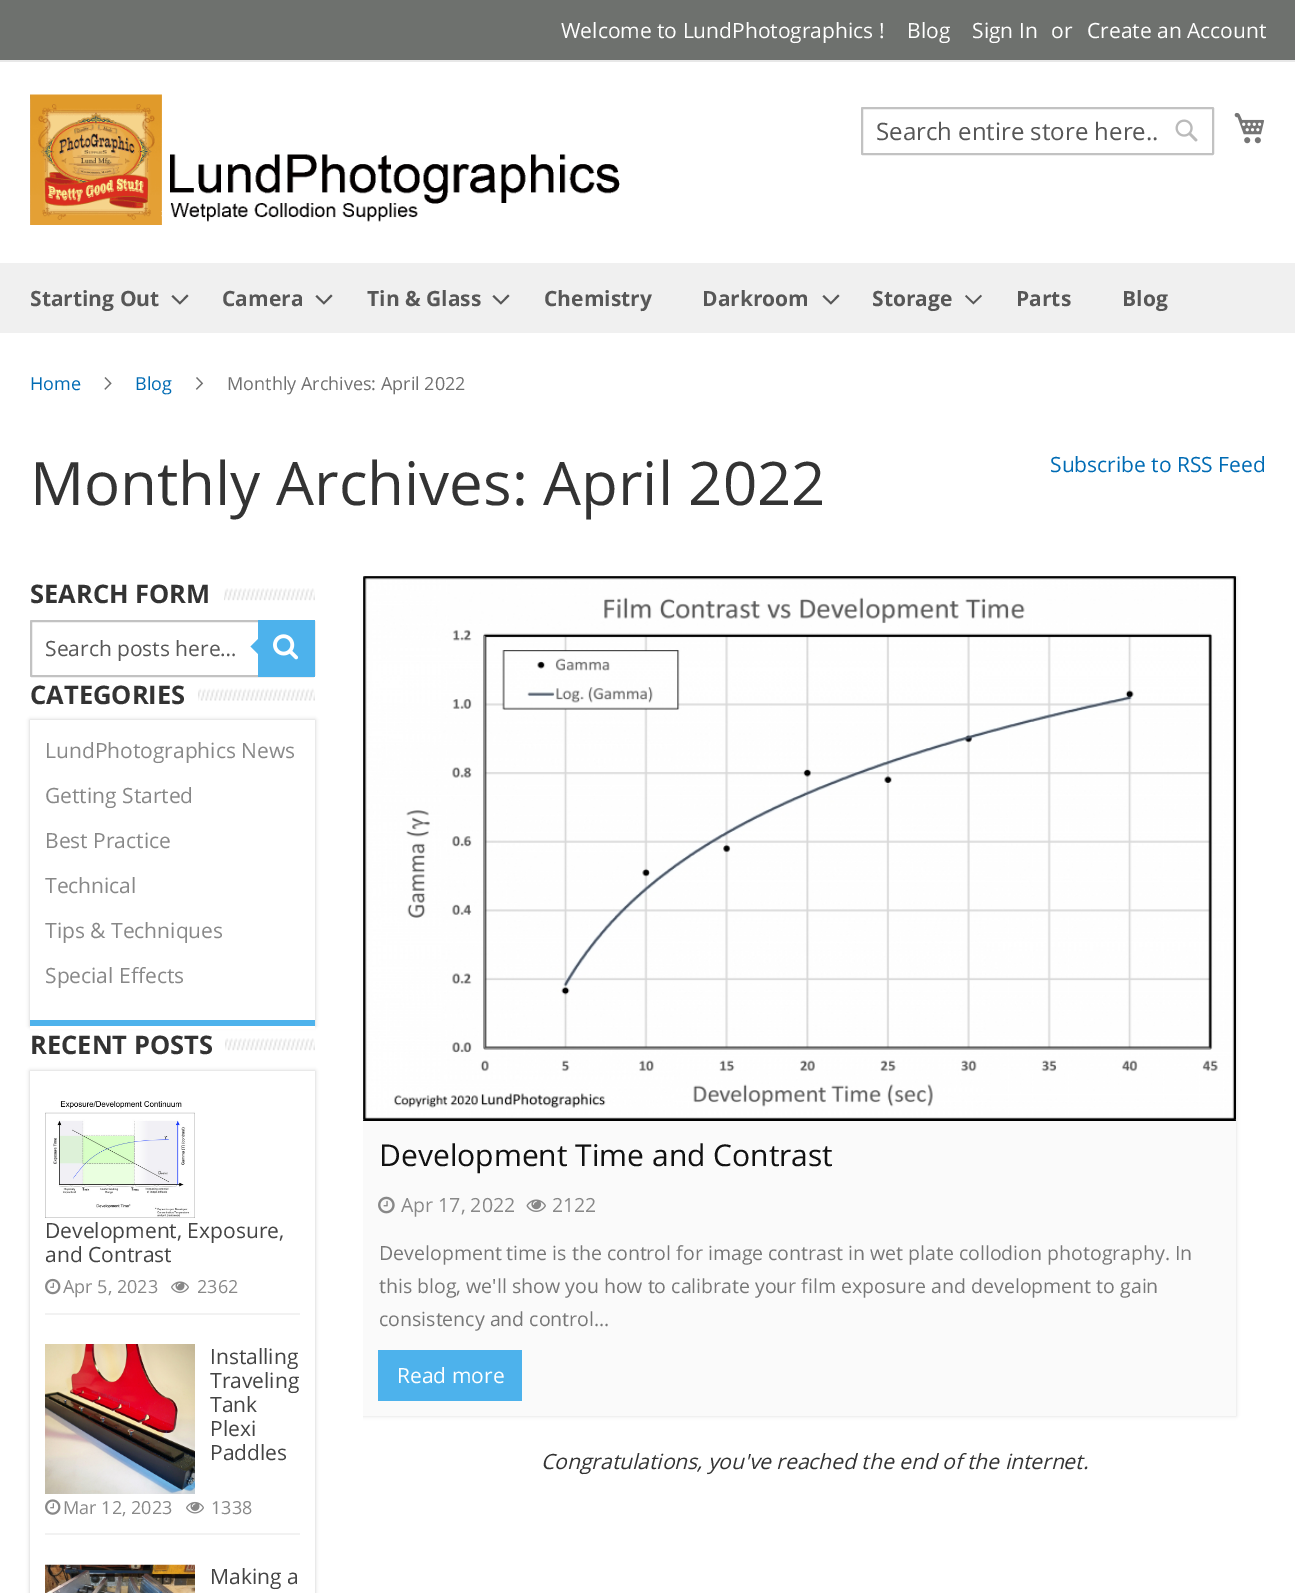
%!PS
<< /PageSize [1295 1593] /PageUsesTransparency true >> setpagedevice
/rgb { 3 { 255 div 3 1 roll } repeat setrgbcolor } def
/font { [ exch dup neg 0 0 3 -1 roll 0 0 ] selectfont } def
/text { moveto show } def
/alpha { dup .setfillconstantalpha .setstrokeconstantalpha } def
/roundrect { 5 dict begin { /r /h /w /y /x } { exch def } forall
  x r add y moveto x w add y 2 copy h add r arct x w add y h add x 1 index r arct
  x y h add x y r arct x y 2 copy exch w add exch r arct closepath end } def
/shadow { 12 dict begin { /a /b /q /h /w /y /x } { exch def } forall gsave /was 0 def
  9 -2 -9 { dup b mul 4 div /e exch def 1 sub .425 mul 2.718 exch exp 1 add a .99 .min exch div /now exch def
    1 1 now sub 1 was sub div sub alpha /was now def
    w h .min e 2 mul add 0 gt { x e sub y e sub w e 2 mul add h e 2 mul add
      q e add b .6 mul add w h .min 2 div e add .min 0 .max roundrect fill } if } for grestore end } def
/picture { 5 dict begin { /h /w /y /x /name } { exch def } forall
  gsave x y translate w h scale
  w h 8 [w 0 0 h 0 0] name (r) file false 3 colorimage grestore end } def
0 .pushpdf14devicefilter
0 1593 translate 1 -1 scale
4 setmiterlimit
255 255 255 rgb
0 0 1295 1593 rectfill
110 113 110 rgb
0 0 1295 60 rectfill
232 232 232 rgb
0 60 1295 2 rectfill
(img_01.rgb) 30 94 590 131 picture
194 194 194 rgb
2 setlinewidth
862 108 351 46 0.5 roundrect stroke
(img_02.rgb) 1175 119 23 23 picture
(img_03.rgb) 1234 112 31 32 picture
240 240 240 rgb
0 263 1295 70 rectfill
87 87 87 rgb
180 302 moveto -7 -7 rlineto -1.5 1.5 rlineto 8.5 8 rlineto 8.5 -8.5 rlineto -1.5 -1.5 rlineto closepath fill
324 302 moveto -7 -7 rlineto -1.5 1.5 rlineto 8.5 8 rlineto 8.5 -8.5 rlineto -1.5 -1.5 rlineto closepath fill
501 302 moveto -7 -7 rlineto -1.5 1.5 rlineto 8.5 8 rlineto 8.5 -8.5 rlineto -1.5 -1.5 rlineto closepath fill
831 302 moveto -7 -7 rlineto -1.5 1.5 rlineto 8.5 8 rlineto 8.5 -8.5 rlineto -1.5 -1.5 rlineto closepath fill
(img_04.rgb) 965 294 17 11 picture
(img_05.rgb) 104 377 8 13 picture
(img_06.rgb) 195 377 9 13 picture
(img_07.rgb) 224 588 91 13 picture
194 194 194 rgb
31 621 283 55 0.5 roundrect stroke
77 178 236 rgb
258 639 moveto 0 15 rlineto -7.5 -7.5 rlineto closepath fill
258 620 57 57 rectfill
(img_08.rgb) 273 634 26 26 picture
(img_09.rgb) 198 688 117 13 picture
gsave
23 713 moveto 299 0 rlineto 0 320 rlineto -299 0 rlineto closepath 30 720 moveto 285 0 rlineto 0 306 rlineto -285 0 rlineto closepath eoclip newpath
202 202 202 rgb
30 720 285 306 0 2 1 shadow
grestore
30 1020 285 6 rectfill
255 255 255 rgb
30 1026 285 3 rectfill
(img_10.rgb) 225 1038 90 13 picture
gsave
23 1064 moveto 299 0 rlineto 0 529 rlineto -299 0 rlineto closepath 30 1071 moveto 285 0 rlineto 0 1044 rlineto -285 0 rlineto closepath eoclip newpath
202 202 202 rgb
30 1071 285 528 0 2 1 shadow
grestore
242 242 242 rgb
45 1313 255 2 rectfill
(img_11.rgb) 45 1101 150 117 picture
(img_12.rgb) 45 1278 16 17 picture
(img_13.rgb) 171 1281 18 12 picture
45 1533 255 2 rectfill
(img_14.rgb) 45 1344 150 150 picture
(img_15.rgb) 45 1499 16 16 picture
(img_16.rgb) 186 1501 18 13 picture
(img_17.rgb) 45 1564 150 29 picture
gsave
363 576 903 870 rectclip
217 217 217 rgb
363 576 873 840 0 2 1 shadow
grestore
250 250 250 rgb
363 1121 873 295 rectfill
0 0 0 rgb
363 1120 873 1 rectfill
(img_18.rgb) 363 576 873 545 picture
(img_19.rgb) 378 1196 17 18 picture
(img_20.rgb) 526 1199 20 13 picture
77 178 236 rgb
378 1350 144 51 rectfill
/OpenSans-Regular 21 font
255 255 255 rgb
(Welcome to LundPhotographics !) 561 38 text
(Blog) 907 38 text
(Sign In) 972 38 text
(or) 1051 38 text
(Create an Account) 1087 38 text
/OpenSans-Regular 24 font
87 87 87 rgb
(Search entire store here..) 876 140 text
/OpenSans-Bold 21 font
(Starting Out) 30 306 text
(Camera) 222 306 text
(Tin & Glass) 367 306 text
(Chemistry) 544 306 text
(Darkroom) 702 306 text
(Storage) 872 306 text
(Parts) 1016 306 text
(Blog) 1122 306 text
/OpenSans-Regular 18 font
0 107 180 rgb
(Home) 30 390 text
(Blog) 135 390 text
112 112 112 rgb
(Monthly Archives: April 2022) 227 390 text
/OpenSans-Regular 60 font
51 51 51 rgb
(Monthly Archives: April 2022) 30 505 text
/OpenSans-Regular 21 font
0 107 180 rgb
(Subscribe to RSS Feed) 1050 472 text
/OpenSans-Bold 25.5 font
51 51 51 rgb
(SEARCH FORM) 30 603 text
/OpenSans-Regular 21 font
87 87 87 rgb
(Search posts here…) 45 656 text
/OpenSans-Bold 25.5 font
51 51 51 rgb
(CATEGORIES) 30 704 text
/OpenSans-Regular 21 font
136 136 136 rgb
(LundPhotographics News) 45 758 text
(Getting Started) 45 803 text
(Best Practice) 45 848 text
(Technical) 45 893 text
(Tips & Techniques) 45 938 text
(Special Effects) 45 983 text
/OpenSans-Bold 25.5 font
51 51 51 rgb
(RECENT POSTS) 30 1054 text
/OpenSans-Regular 21 font
68 68 68 rgb
(Development, Exposure,) 45 1238 text
(and Contrast) 45 1262 text
/OpenSans-Regular 18 font
136 136 136 rgb
(Apr 5, 2023) 63 1293 text
(2362) 197 1293 text
/OpenSans-Regular 21 font
68 68 68 rgb
(Installing) 210 1364 text
(Traveling) 210 1388 text
(Tank) 210 1412 text
(Plexi) 210 1436 text
(Paddles) 210 1460 text
/OpenSans-Regular 18 font
136 136 136 rgb
(Mar 12, 2023) 63 1514 text
(1338) 211 1514 text
/OpenSans-Regular 21 font
68 68 68 rgb
(Making a) 210 1584 text
/OpenSans-Regular 30 font
17 17 17 rgb
(Development Time and Contrast) 379 1166 text
/OpenSans-Regular 19.5 font
136 136 136 rgb
(Apr 17, 2022) 401 1212 text
(2122) 552 1212 text
119 119 119 rgb
(Development time is the control for image contrast in wet plate collodion photography. In) 379 1260 text
(this blog, we'll show you how to calibrate your film exposure and development to gain) 379 1293 text
(consistency and control...) 379 1326 text
/OpenSans-Regular 21 font
255 255 255 rgb
(Read more) 397 1383 text
/OpenSans-Italic 21 font
51 51 51 rgb
(Congratulations, you've reached the end of the internet.) 541 1469 text
.poppdf14devicefilter showpage
